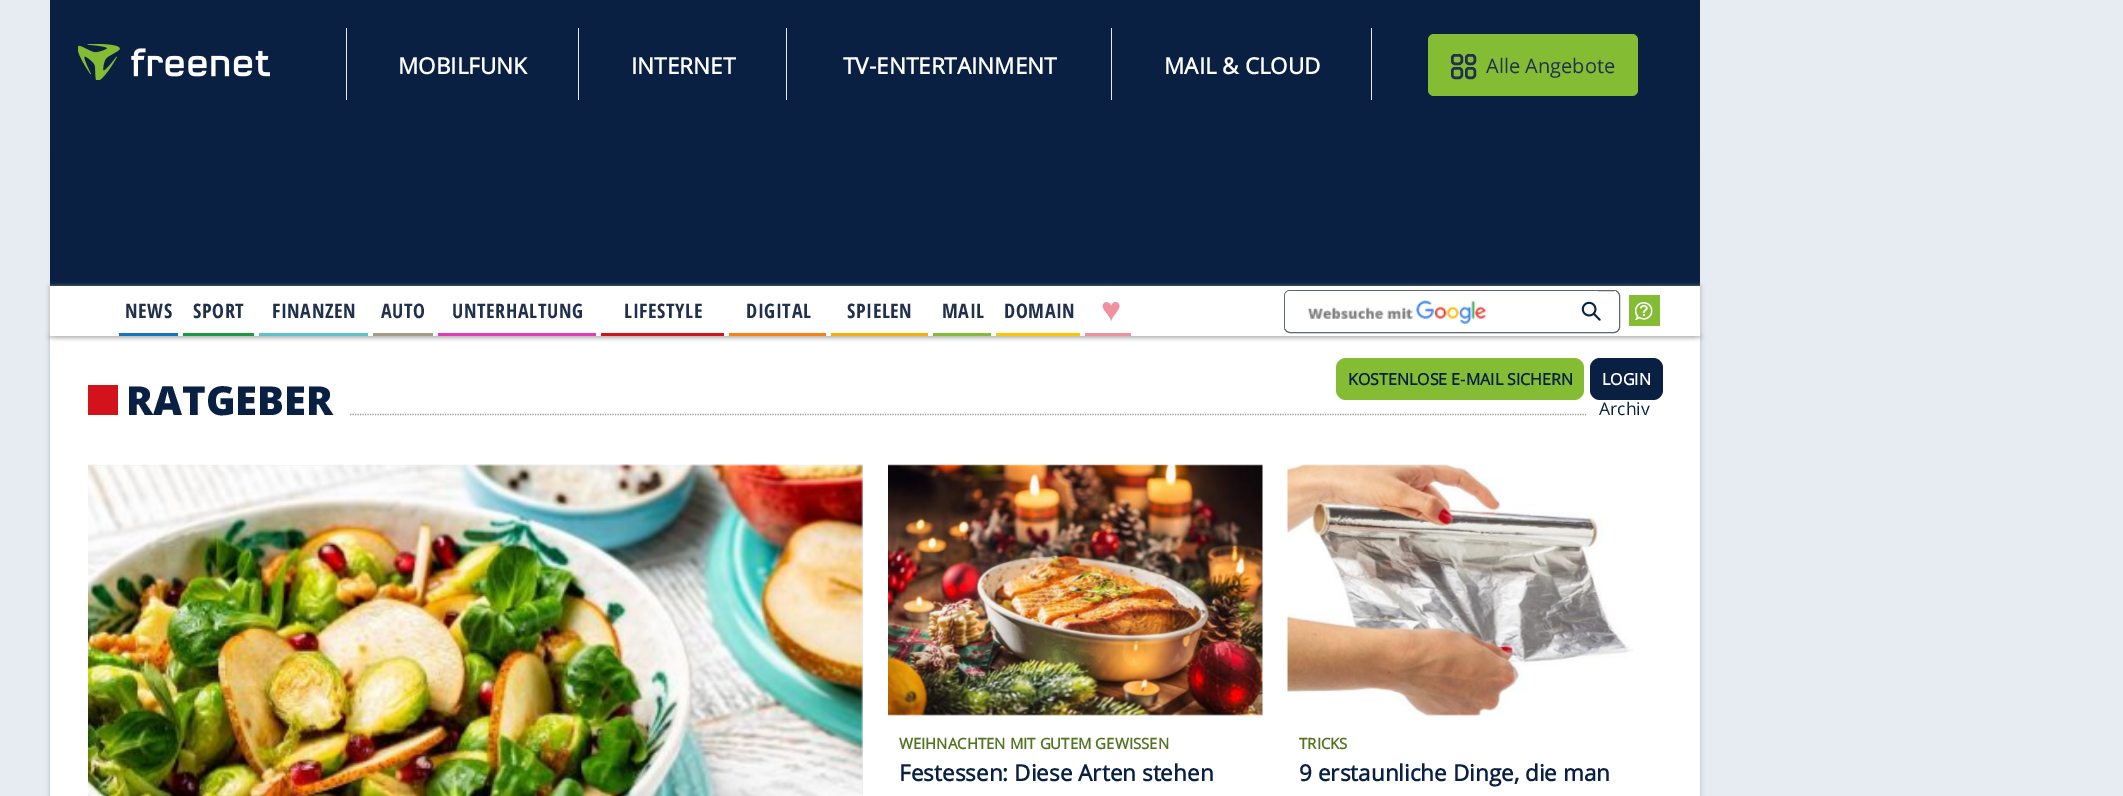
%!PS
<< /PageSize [2123 796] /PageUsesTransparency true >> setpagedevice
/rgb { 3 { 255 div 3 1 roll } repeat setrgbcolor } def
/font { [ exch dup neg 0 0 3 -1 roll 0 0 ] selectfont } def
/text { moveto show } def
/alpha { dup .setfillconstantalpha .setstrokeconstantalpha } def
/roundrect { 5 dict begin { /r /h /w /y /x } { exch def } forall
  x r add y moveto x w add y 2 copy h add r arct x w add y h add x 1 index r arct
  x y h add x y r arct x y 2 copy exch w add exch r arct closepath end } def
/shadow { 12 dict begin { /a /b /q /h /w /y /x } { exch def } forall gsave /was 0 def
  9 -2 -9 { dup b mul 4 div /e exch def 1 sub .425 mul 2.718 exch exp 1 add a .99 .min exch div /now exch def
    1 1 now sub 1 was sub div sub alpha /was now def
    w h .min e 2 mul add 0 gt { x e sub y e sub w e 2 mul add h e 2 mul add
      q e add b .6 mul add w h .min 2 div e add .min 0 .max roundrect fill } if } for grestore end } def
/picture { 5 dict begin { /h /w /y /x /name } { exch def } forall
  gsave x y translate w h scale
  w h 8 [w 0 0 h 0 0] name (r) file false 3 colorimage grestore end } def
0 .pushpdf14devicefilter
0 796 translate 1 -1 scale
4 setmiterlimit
231 235 242 rgb
0 0 2123 796 rectfill
0 0 0 rgb
50 336 1650 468 0 2.5 0.2 shadow
255 255 255 rgb
50 336 1650 460 rectfill
170 170 170 rgb
56 149 1638 186 0 3 0.7 shadow
56 149 1638 186 0 3 0.7 shadow
9 32 67 rgb
50 0 1650 286 rectfill
(img_01.rgb) 78 44 192 36 picture
231 235 242 rgb
346 28 1 72 rectfill
578 28 1 72 rectfill
786 28 1 72 rectfill
1111 28 1 72 rectfill
1371 28 1 72 rectfill
132 188 52 rgb
1428 34 210 62 6 roundrect fill
33 49 77 rgb
2.5 setlinewidth
1452.25 55.25 9.5 8.5 2.75 roundrect stroke
1466.25 55.25 8.5 8.5 2.75 roundrect stroke
1452.25 68.25 9.5 9.5 2.75 roundrect stroke
1466.25 68.25 8.5 9.5 2.75 roundrect stroke
170 170 170 rgb
49 286 1652 52 0 2 0.7 shadow
255 255 255 rgb
50 286 1650 50 rectfill
17 117 195 rgb
119 333 59 3 rectfill
26 154 69 rgb
183 333 71 3 rectfill
91 195 203 rgb
259 333 109 3 rectfill
166 155 137 rgb
373 333 60 3 rectfill
227 58 185 rgb
438 333 158 3 rectfill
212 18 26 rgb
601 333 123 3 rectfill
249 129 16 rgb
729 333 97 3 rectfill
243 177 5 rgb
831 333 97 3 rectfill
132 188 52 rgb
933 333 58 3 rectfill
254 198 0 rgb
996 333 84 3 rectfill
240 144 158 rgb
1085 333 46 3 rectfill
94 102 110 rgb
1 setlinewidth
1284.5 290.5 335 42 5.5 roundrect stroke
gsave
1285 291 334 40 5 roundrect clip newpath
255 255 255 rgb
1290 291 moveto 308 0 rlineto 0 38 rlineto -313 0 rlineto 0 -33 rlineto 0 -3 2 -5 5 -5 rcurveto closepath fill
grestore
(img_02.rgb) 1307 299 180 25 picture
255 255 255 rgb
1614 291 2 1 rectfill
(img_03.rgb) 1581 301 20 20 picture
132 188 52 rgb
1629 295 31 31 rectfill
(img_04.rgb) 1635 302 18 18 picture
1336 358 248 42 10 roundrect fill
9 32 67 rgb
1590 358 73 42 10 roundrect fill
212 18 26 rgb
88 385 30 30 rectfill
151 151 151 rgb
1.2 setlinewidth
[1.25 1.25] 0 setdash
350 414.5 moveto 1236 0 rlineto stroke
231 235 242 rgb
88 465 775 331 rectfill
(img_05.rgb) 88 464 775 332 picture
(img_06.rgb) 888 464 375 252 picture
(img_07.rgb) 1287 464 347 252 picture
/OpenSans-Bold 22.5 font
255 255 255 rgb
(MOBILFUNK) 398 74 text
(INTERNET) 631 74 text
(TV-ENTERTAINMENT) 843 74 text
(MAIL & CLOUD) 1164 74 text
/OpenSans-Regular 20 font
33 49 77 rgb
(Alle Angebote) 1486 73 text
/OpenSansCondensed-Bold 20 font
125 318 moveto 0.6 0 (NEWS) ashow
193 318 moveto 0.6 0 (SPORT) ashow
272 318 moveto 0.6 0 (FINANZEN) ashow
381 318 moveto 0.6 0 (AUTO) ashow
452 318 moveto 0.6 0 (UNTERHALTUNG) ashow
624 318 moveto 0.6 0 (LIFESTYLE) ashow
746 318 moveto 0.6 0 (DIGITAL) ashow
847 318 moveto 0.6 0 (SPIELEN) ashow
942 318 moveto 0.6 0 (MAIL) ashow
1004 318 moveto 0.6 0 (DOMAIN) ashow
/LiberationSans-Bold 34 font
240 144 158 rgb
1101 321 moveto 0.6 0 (♥) ashow
/OpenSans-Bold 16 font
9 32 67 rgb
(KOSTENLOSE E-MAIL SICHERN) 1348 385 text
255 255 255 rgb
(LOGIN) 1602 385 text
/OpenSans-ExtraBold 40 font
9 32 67 rgb
(RATGEBER) 126 415 text
/OpenSans-Regular 17.5 font
(Archiv) 1599 415 text
/OpenSans-Bold 15 font
81 116 32 rgb
(WEIHNACHTEN MIT GUTEM GEWISSEN) 899 749 text
/OpenSans-Bold 22.5 font
9 32 67 rgb
(Festessen: Diese Arten stehen) 899 781 text
/OpenSans-Bold 15 font
81 116 32 rgb
(TRICKS) 1299 749 text
/OpenSans-Bold 22.5 font
9 32 67 rgb
(9 erstaunliche Dinge, die man) 1299 781 text
.poppdf14devicefilter showpage
